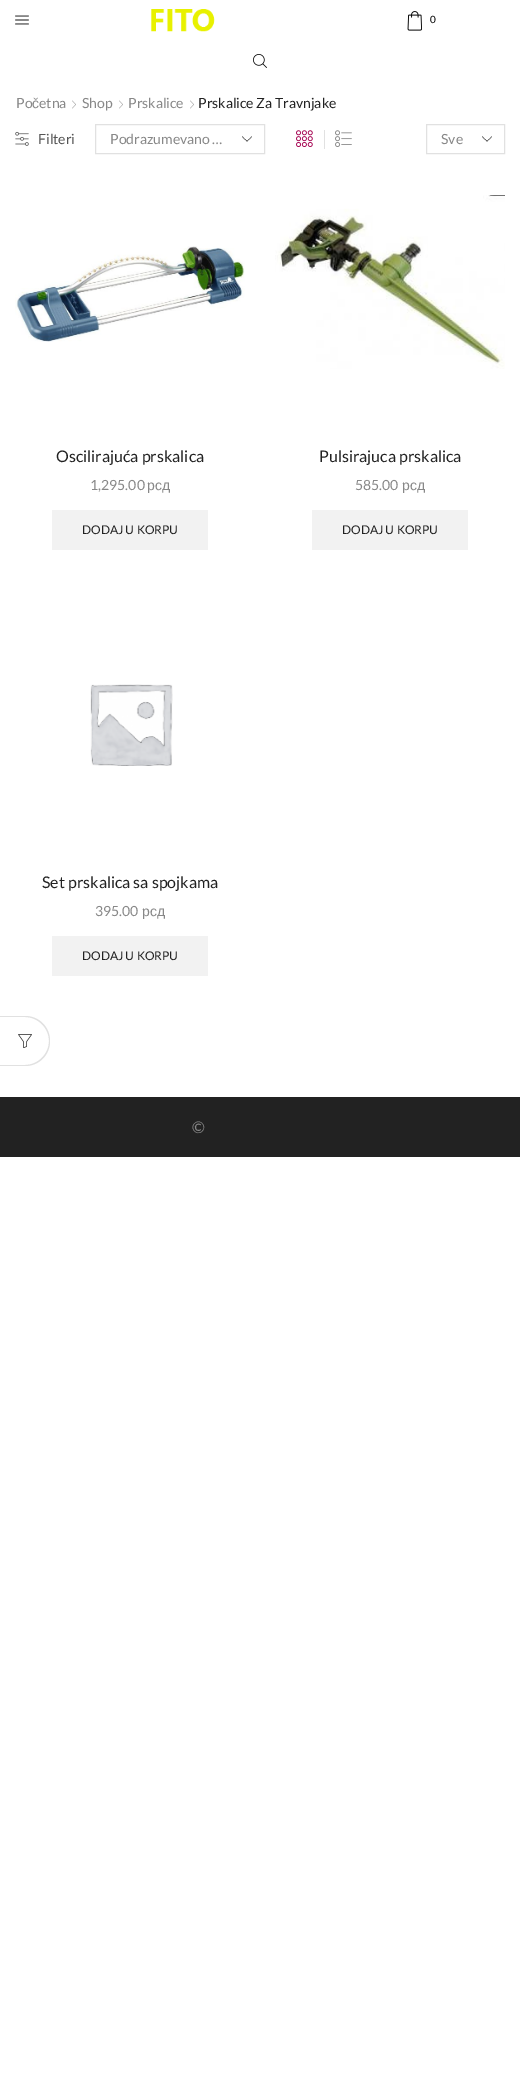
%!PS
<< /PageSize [520 2092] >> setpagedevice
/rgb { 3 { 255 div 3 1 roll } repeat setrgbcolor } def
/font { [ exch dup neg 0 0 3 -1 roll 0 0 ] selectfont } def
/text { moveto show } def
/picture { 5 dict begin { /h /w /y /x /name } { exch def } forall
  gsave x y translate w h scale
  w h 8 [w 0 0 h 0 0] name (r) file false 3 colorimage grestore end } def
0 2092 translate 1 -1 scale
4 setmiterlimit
255 255 255 rgb
0 0 520 2092 rectfill
(img_01.rgb) 15 15 14 10 picture
(img_02.rgb) 151 9 64 23 picture
(img_03.rgb) 407 11 15 20 picture
(img_04.rgb) 253 54 14 14 picture
(img_05.rgb) 72 100 4 9 picture
(img_05.rgb) 119 100 4 9 picture
(img_05.rgb) 190 100 4 9 picture
(img_06.rgb) 15 131 14 15 picture
(img_07.rgb) 242 136 10 6 picture
225 225 225 rgb
95.5 124.5 169 29 rectstroke
(img_08.rgb) 296 130 17 17 picture
324 130 1 19 rectfill
(img_09.rgb) 335 130 17 17 picture
(img_10.rgb) 482 136 10 6 picture
426.5 124.5 78 29 rectstroke
(img_11.rgb) 15 246 230 96 picture
242 242 242 rgb
52 510 156 40 rectfill
(img_12.rgb) 275 195 230 174 picture
312 510 156 40 rectfill
(img_13.rgb) 90 684 83 82 picture
52 936 156 40 rectfill
34 34 34 rgb
0 1097 520 60 rectfill
225 225 225 rgb
0 1016 moveto 25 0 rlineto 14 0 25 11 25 25 rcurveto 0 14 -11 25 -25 25 rcurveto -25 0 rlineto closepath 0 1017 moveto 25 0 rlineto 13 0 24 11 24 24 rcurveto 0 13 -11 24 -24 24 rcurveto -25 0 rlineto closepath eofill
(img_14.rgb) 18 1034 14 14 picture
/Lato-Regular 10 font
0 0 0 rgb
(0) 430 23 text
/Lato-Regular 14 font
136 136 136 rgb
(Po) 16 108 text
/LiberationSans-Regular 14 font
(č) 32 108 text
/Lato-Regular 14 font
(etna) 39 108 text
(Shop) 82 108 text
(Prskalice) 128 108 text
34 34 34 rgb
(Prskalice Za Travnjake) 198 108 text
85 85 85 rgb
(Filteri) 38 144 text
136 136 136 rgb
(Podrazumevano …) 110 144 text
(Sve) 441 144 text
/Lato-Regular 16 font
34 34 34 rgb
(Oscilirajuća prskalica) 56 462 text
/Lato-Regular 14 font
136 136 136 rgb
(1,295.00) 90 490 text
/LiberationSans-Regular 14 font
(рсд) 147 490 text
/Lato-Regular 12 font
34 34 34 rgb
(DODAJ U KORPU) 82 534 text
/Lato-Regular 16 font
(Pulsirajuca prskalica) 319 462 text
/Lato-Regular 14 font
136 136 136 rgb
(585.00) 355 490 text
/LiberationSans-Regular 14 font
(рсд) 402 490 text
/Lato-Regular 12 font
34 34 34 rgb
(DODAJ U KORPU) 342 534 text
/Lato-Regular 16 font
(Set prskalica sa spojkama) 42 888 text
/Lato-Regular 14 font
136 136 136 rgb
(395.00) 95 916 text
/LiberationSans-Regular 14 font
(рсд) 142 916 text
/Lato-Regular 12 font
34 34 34 rgb
(DODAJ U KORPU) 82 960 text
/Lato-Regular 16 font
136 136 136 rgb
(©) 192 1133 text
showpage
